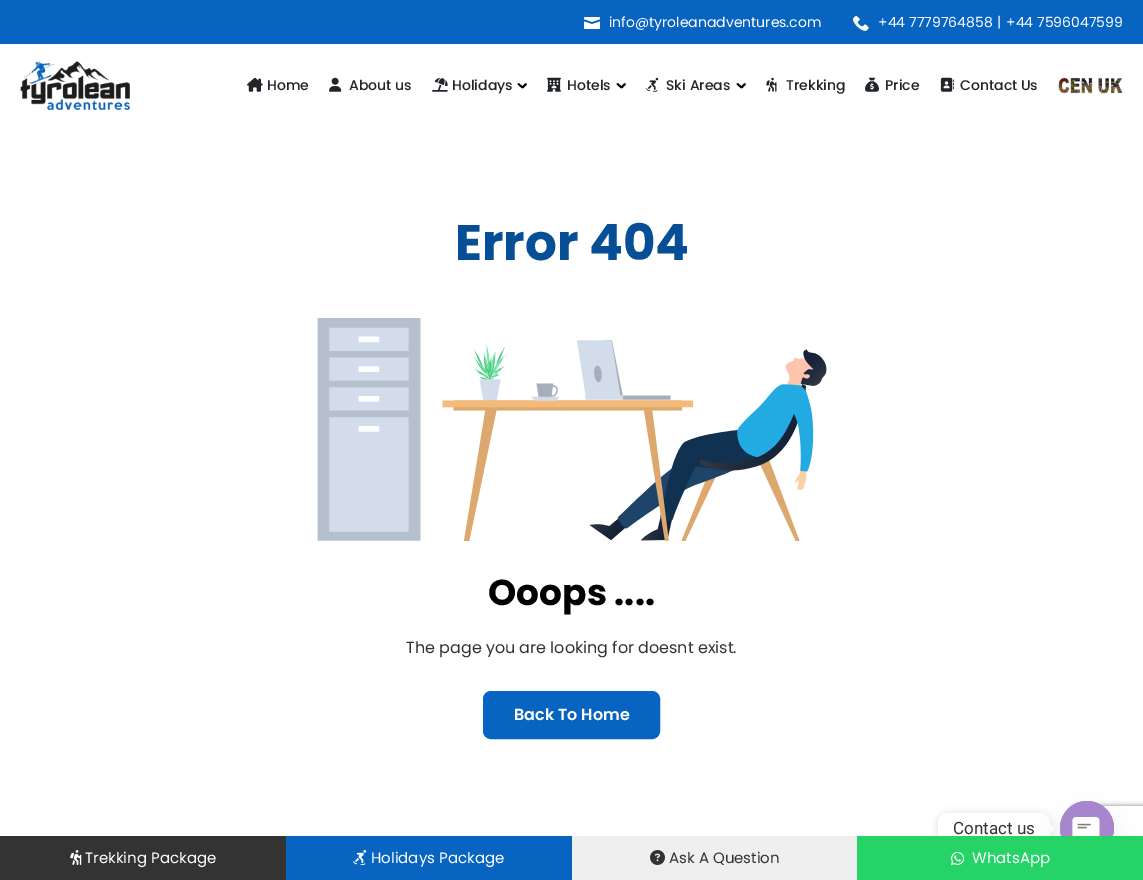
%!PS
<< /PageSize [1143 880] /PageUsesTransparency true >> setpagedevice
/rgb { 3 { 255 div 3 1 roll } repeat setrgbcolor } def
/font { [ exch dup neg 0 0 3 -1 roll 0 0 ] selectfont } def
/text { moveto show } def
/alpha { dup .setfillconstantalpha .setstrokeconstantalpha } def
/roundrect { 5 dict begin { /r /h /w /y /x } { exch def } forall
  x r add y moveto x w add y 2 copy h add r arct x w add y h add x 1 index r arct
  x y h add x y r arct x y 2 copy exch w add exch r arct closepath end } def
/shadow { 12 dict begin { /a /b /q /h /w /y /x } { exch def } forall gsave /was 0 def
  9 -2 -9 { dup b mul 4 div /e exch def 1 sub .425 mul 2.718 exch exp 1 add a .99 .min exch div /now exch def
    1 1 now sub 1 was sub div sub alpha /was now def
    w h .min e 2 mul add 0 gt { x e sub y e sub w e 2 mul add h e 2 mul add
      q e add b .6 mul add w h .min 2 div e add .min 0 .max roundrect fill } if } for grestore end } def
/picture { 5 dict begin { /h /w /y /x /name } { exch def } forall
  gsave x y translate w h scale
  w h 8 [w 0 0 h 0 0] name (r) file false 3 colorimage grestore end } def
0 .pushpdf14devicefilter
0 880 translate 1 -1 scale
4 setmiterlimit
255 255 255 rgb
0 0 1143 880 rectfill
8 100 193 rgb
0 0 1143 44 rectfill
(img_01.rgb) 584 17 16 12 picture
(img_02.rgb) 853 16 16 15 picture
(img_03.rgb) 20 61 110 49 picture
(img_04.rgb) 247 77 16 15 picture
(img_05.rgb) 329 77 13 15 picture
(img_06.rgb) 432 77 16 15 picture
0 0 0 rgb
1.8 setlinewidth
1 setlinecap
1 setlinejoin
518.5 84 moveto 4 3.5 rlineto 3.5 -3.5 rlineto stroke
(img_07.rgb) 547 77 14 15 picture
617.5 84 moveto 4 3.5 rlineto 3.5 -3.5 rlineto stroke
(img_08.rgb) 646 77 13 15 picture
737.5 84 moveto 4 3.5 rlineto 3.5 -3.5 rlineto stroke
(img_09.rgb) 766 77 11 15 picture
(img_10.rgb) 865 77 14 15 picture
(img_11.rgb) 940 77 14 15 picture
(img_12.rgb) 1058 77 65 17 picture
(img_13.rgb) 317 318 510 223 picture
8 100 193 rgb
483.5 691.5 176 47 7.5 roundrect gsave fill grestore
1 setlinewidth
0 setlinecap
0 setlinejoin
stroke
0 0 0 rgb
938 814 112 31 10 4 0.15 shadow
255 255 255 rgb
938 813 112 31 10 roundrect fill
1050 833.5 moveto 0 -10 rlineto 5 5 rlineto closepath fill
73 104 126 rgb
1060 817 54 54 27 12 0.16 shadow
gsave
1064 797 moveto 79 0 rlineto 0 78 rlineto -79 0 rlineto closepath 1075 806 moveto 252 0 rlineto 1 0 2 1 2 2 rcurveto 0 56 rlineto 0 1 -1 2 -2 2 rcurveto -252 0 rlineto -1 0 -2 -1 -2 -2 rcurveto 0 -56 rlineto 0 -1 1 -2 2 -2 rcurveto closepath eoclip newpath
128 128 128 rgb
1073 806 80 60 2 2.5 1 shadow
grestore
(img_14.rgb) 1060 801 54 35 picture
51 51 51 rgb
0 836 286 44 rectfill
(img_15.rgb) 70 850 12 15 picture
8 100 193 rgb
286 836 286 44 rectfill
(img_16.rgb) 353 850 14 15 picture
239 239 239 rgb
572 836 285 44 rectfill
(img_17.rgb) 650 850 15 15 picture
37 211 102 rgb
857 836 286 44 rectfill
(img_18.rgb) 951 851 14 14 picture
/Poppins-Regular 14 font
255 255 255 rgb
(info@tyroleanadventures.com) 609 27 text
(+44 7779764858) 878 27 text
(|) 997 27 text
(+44 7596047599) 1006 27 text
/Poppins-Medium 14 font
33 37 41 rgb
(Home) 267 90 text
(About us) 349 90 text
(Holidays) 452 90 text
(Hotels) 567 90 text
(Ski Areas) 666 90 text
(Trekking) 786 90 text
(Price) 885 90 text
(Contact Us) 960 90 text
/Poppins-Bold 50 font
6 78 149 rgb
(Error 404) 455 260 text
/Poppins-Bold 36 font
0 0 0 rgb
(Ooops ....) 488 605 text
/Poppins-Regular 16 font
51 51 51 rgb
(The page you are looking for doesnt exist.) 406 653 text
/Poppins-SemiBold 16 font
255 255 255 rgb
(Back To Home) 514 720 text
/Roboto-Regular 17 font
51 51 51 rgb
(Contact us) 953 834 text
/Poppins-Regular 15 font
255 255 255 rgb
(Trekking Package) 85 863 text
(Holidays Package) 371 863 text
51 51 51 rgb
(Ask A Question) 669 863 text
255 255 255 rgb
(WhatsApp) 972 863 text
.poppdf14devicefilter showpage
